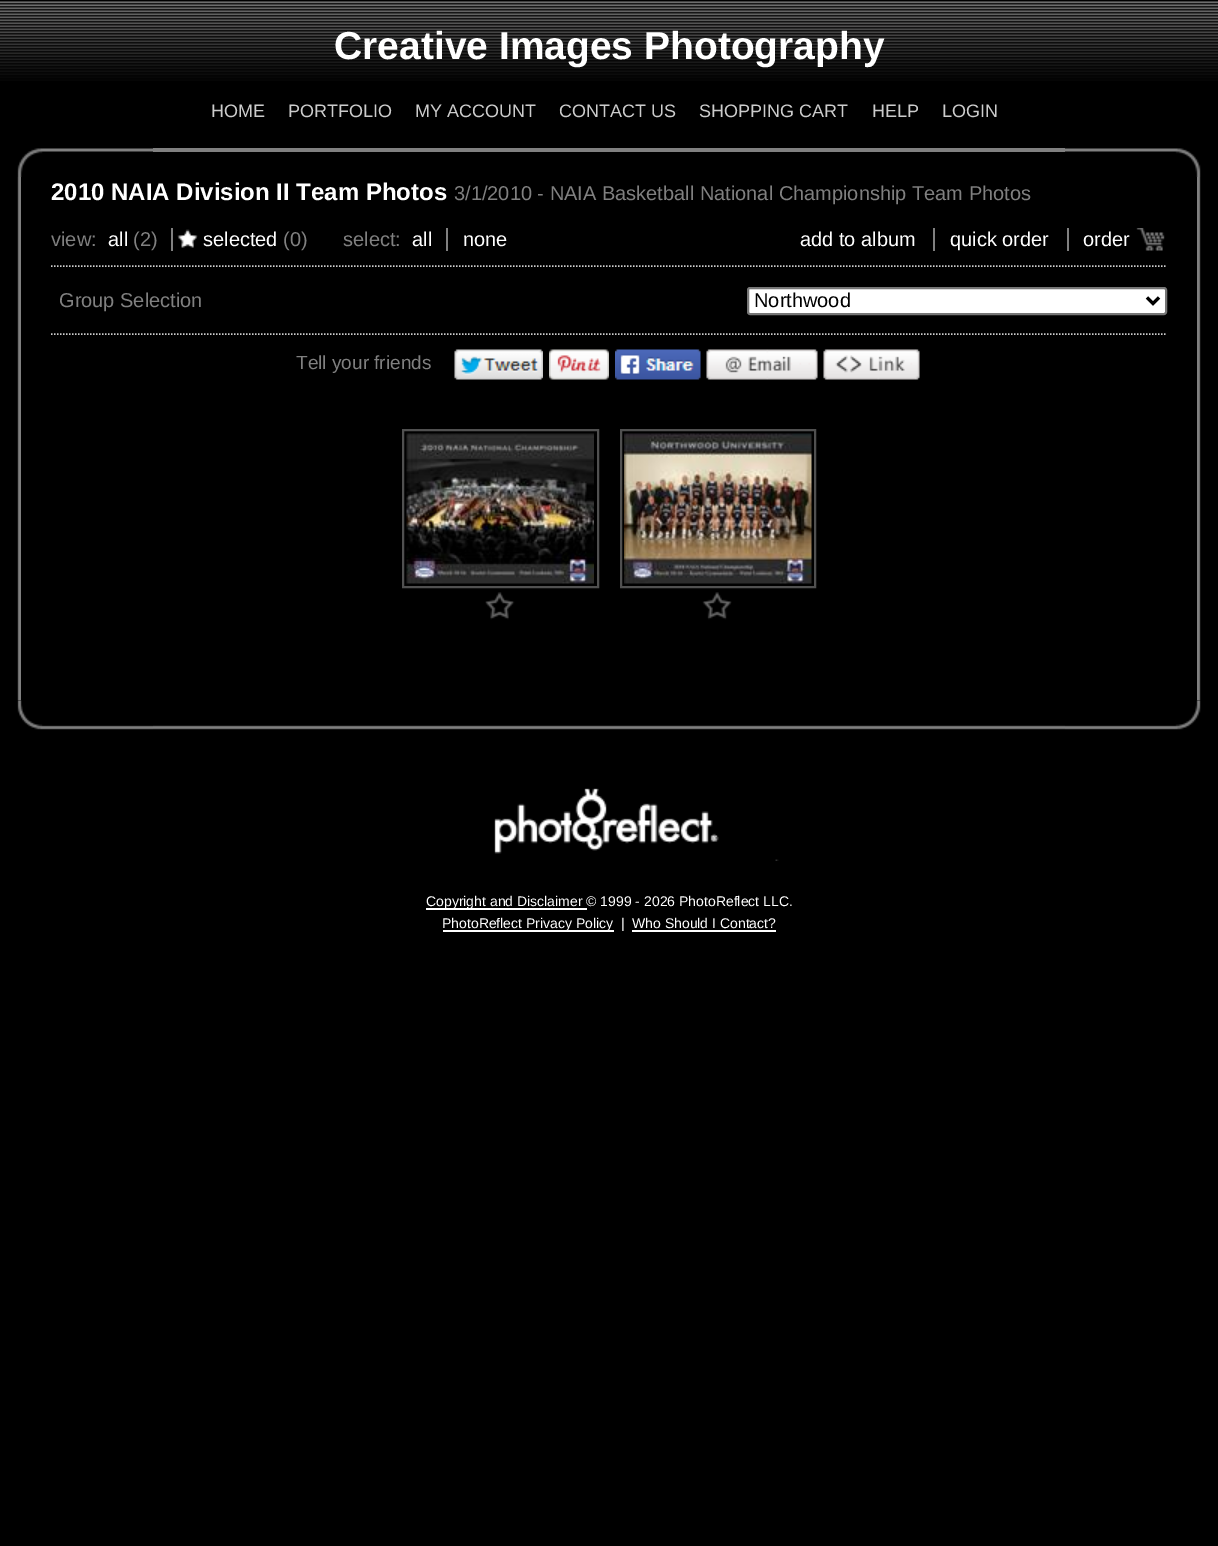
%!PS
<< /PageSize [1218 1546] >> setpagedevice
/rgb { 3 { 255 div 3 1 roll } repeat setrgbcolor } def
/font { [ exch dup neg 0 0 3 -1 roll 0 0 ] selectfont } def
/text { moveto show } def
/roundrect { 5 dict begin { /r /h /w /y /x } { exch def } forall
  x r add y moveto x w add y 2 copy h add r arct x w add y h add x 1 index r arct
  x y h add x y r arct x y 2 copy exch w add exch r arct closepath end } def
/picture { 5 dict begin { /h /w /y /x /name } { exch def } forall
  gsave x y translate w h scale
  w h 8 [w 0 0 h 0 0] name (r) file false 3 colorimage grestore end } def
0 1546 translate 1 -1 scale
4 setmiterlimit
0 0 0 rgb
0 0 1218 1546 rectfill
(img_01.rgb) 0 1 1218 80 picture
128 128 128 rgb
153 148 912 4 rectfill
(img_02.rgb) 0 148 153 29 picture
(img_03.rgb) 1065 148 153 29 picture
(img_04.rgb) 17 177 4 524 picture
(img_05.rgb) 177 229 21 19 picture
171 228 2 23 rectfill
446 228 2 23 rectfill
933 228 2 23 rectfill
1067 228 2 23 rectfill
(img_06.rgb) 1136 228 29 23 picture
204 204 204 rgb
1.5 setlinewidth
[1.5 1.5] 0 setdash
51 266 moveto 1116 0 rlineto stroke
51 334 moveto 1116 0 rlineto stroke
255 255 255 rgb
748 288 418 26 2 roundrect gsave fill grestore
118 118 118 rgb
2 setlinewidth
[] 0 setdash
stroke
0 0 0 rgb
3 setlinewidth
1147 297.5 moveto 6 6 rlineto 6 -6 rlineto stroke
(img_07.rgb) 454 349 89 31 picture
(img_08.rgb) 549 349 60 31 picture
(img_09.rgb) 615 349 86 31 picture
(img_10.rgb) 706 349 112 31 picture
(img_11.rgb) 823 349 97 31 picture
(img_12.rgb) 406 433 188 151 picture
80 80 80 rgb
2 setlinewidth
403 430 195 157 rectstroke
(img_13.rgb) 485 592 30 28 picture
(img_14.rgb) 624 433 188 151 picture
621 430 194 157 rectstroke
(img_15.rgb) 702 592 30 28 picture
(img_16.rgb) 1197 177 4 524 picture
(img_17.rgb) 0 700 588 30 picture
(img_18.rgb) 0 700 153 30 picture
(img_19.rgb) 588 725 21 5 picture
(img_19.rgb) 609 725 21 5 picture
(img_20.rgb) 630 700 588 30 picture
(img_21.rgb) 1065 700 153 30 picture
(img_22.rgb) 494 788 285 73 picture
255 255 255 rgb
426 908 161 2 rectfill
443 930 171 2 rectfill
632 930 144 2 rectfill
/LiberationSans-Bold 39 font
(Creative Images Photography) 334 59 text
/LiberationSans-Regular 18 font
204 204 204 rgb
(HOME) 211 117 text
(PORTFOLIO) 288 117 text
(MY ACCOUNT) 415 117 text
(CONTACT US) 559 117 text
(SHOPPING CART) 699 117 text
(HELP) 872 117 text
(LOGIN) 942 117 text
/LiberationSans-Bold 24 font
255 255 255 rgb
(2010 NAIA Division II Team Photos) 51 200 text
/LiberationSans-Regular 20 font
128 128 128 rgb
(3/1/2010 - NAIA Basketball National Championship Team Photos) 454 200 text
(view:) 51 246 text
255 255 255 rgb
(all) 108 246 text
128 128 128 rgb
(\(2\)) 133 246 text
255 255 255 rgb
(selected) 203 246 text
128 128 128 rgb
(\(0\)) 283 246 text
(select:) 343 246 text
255 255 255 rgb
(all) 412 246 text
(none) 463 246 text
(add to album) 800 246 text
(quick order) 950 246 text
(order) 1083 246 text
128 128 128 rgb
(Group Selection) 59 307 text
0 0 0 rgb
(Northwood) 754 307 text
/LiberationSans-Regular 19 font
128 128 128 rgb
(Tell your friends) 296 369 text
/LiberationSans-Regular 14 font
255 255 255 rgb
(Copyright and Disclaimer © 1999 - 2026 PhotoReflect LLC.) 426 906 text
(PhotoReflect Privacy Policy) 442 928 text
(|) 621 928 text
(Who Should I Contact?) 632 928 text
showpage
